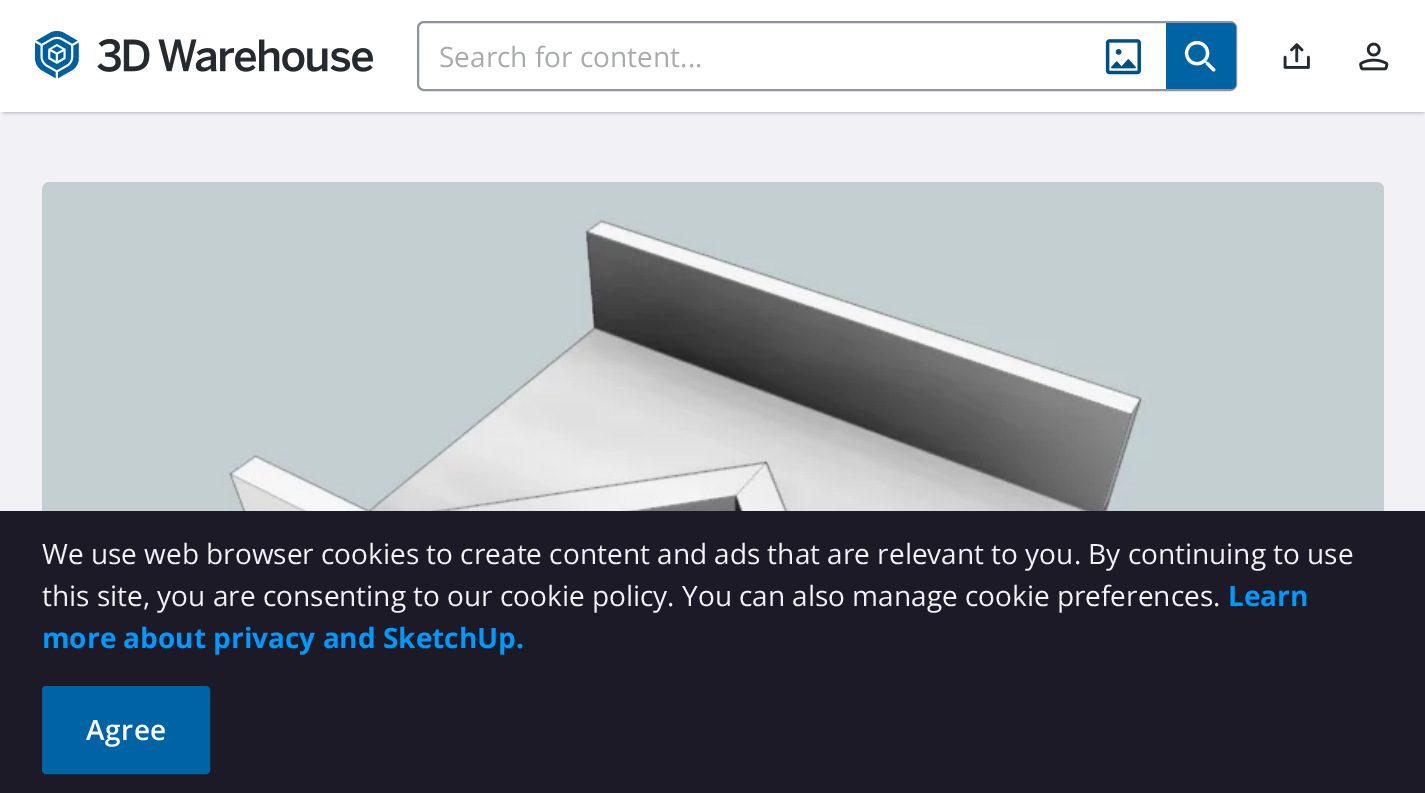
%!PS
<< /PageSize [1425 793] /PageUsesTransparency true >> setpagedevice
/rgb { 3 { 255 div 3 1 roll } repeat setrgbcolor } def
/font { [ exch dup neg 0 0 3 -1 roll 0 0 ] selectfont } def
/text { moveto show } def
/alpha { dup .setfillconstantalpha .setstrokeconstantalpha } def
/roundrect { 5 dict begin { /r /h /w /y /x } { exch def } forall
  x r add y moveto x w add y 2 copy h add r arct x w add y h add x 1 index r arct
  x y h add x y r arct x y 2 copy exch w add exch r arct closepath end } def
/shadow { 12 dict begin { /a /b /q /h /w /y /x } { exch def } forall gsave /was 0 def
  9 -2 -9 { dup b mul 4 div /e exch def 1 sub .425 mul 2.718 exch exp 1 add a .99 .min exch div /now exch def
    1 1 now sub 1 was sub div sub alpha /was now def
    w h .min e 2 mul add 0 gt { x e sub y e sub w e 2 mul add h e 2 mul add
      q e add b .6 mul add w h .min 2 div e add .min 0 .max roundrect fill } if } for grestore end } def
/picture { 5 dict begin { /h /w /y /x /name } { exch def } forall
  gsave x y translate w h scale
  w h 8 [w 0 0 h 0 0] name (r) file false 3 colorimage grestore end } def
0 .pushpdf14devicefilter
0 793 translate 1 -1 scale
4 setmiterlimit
241 241 246 rgb
0 0 1425 793 rectfill
144 147 159 rgb
4 7 1419 105 0 2 1 shadow
255 255 255 rgb
0 0 1425 112 rectfill
(img_01.rgb) 35 30 44 49 picture
(img_02.rgb) 97 39 276 33 picture
144 147 159 rgb
2 setlinewidth
418 22 818 68 6 roundrect stroke
(img_03.rgb) 1105 39 36 36 picture
0 99 163 rgb
1166 23 moveto 65 0 rlineto 3 0 5 2 5 5 rcurveto 0 56 rlineto 0 3 -2 5 -5 5 rcurveto -65 0 rlineto closepath fill
(img_04.rgb) 1184 41 32 31 picture
(img_05.rgb) 1283 43 27 26 picture
(img_06.rgb) 1359 42 30 29 picture
(img_07.rgb) 42 182 1342 329 picture
27 26 38 rgb
0 511 1425 282 rectfill
0 99 163 rgb
43 687 166 86 3 roundrect gsave fill grestore
stroke
/OpenSans-Regular 28 font
168 170 171 rgb
(Search for content...) 439 67 text
241 241 246 rgb
(We use web browser cookies to create content and ads that are relevant to you. By continuing to use) 42 564 text
(this site, you are consenting to our cookie policy. You can also manage cookie preferences.) 42 606 text
/OpenSans-Bold 28 font
0 153 254 rgb
(Learn) 1228 606 text
(more about privacy and SketchUp.) 42 648 text
/OpenSans-SemiBold 28 font
255 255 255 rgb
86 740 moveto 0.5 0 (Agree) ashow
.poppdf14devicefilter showpage
